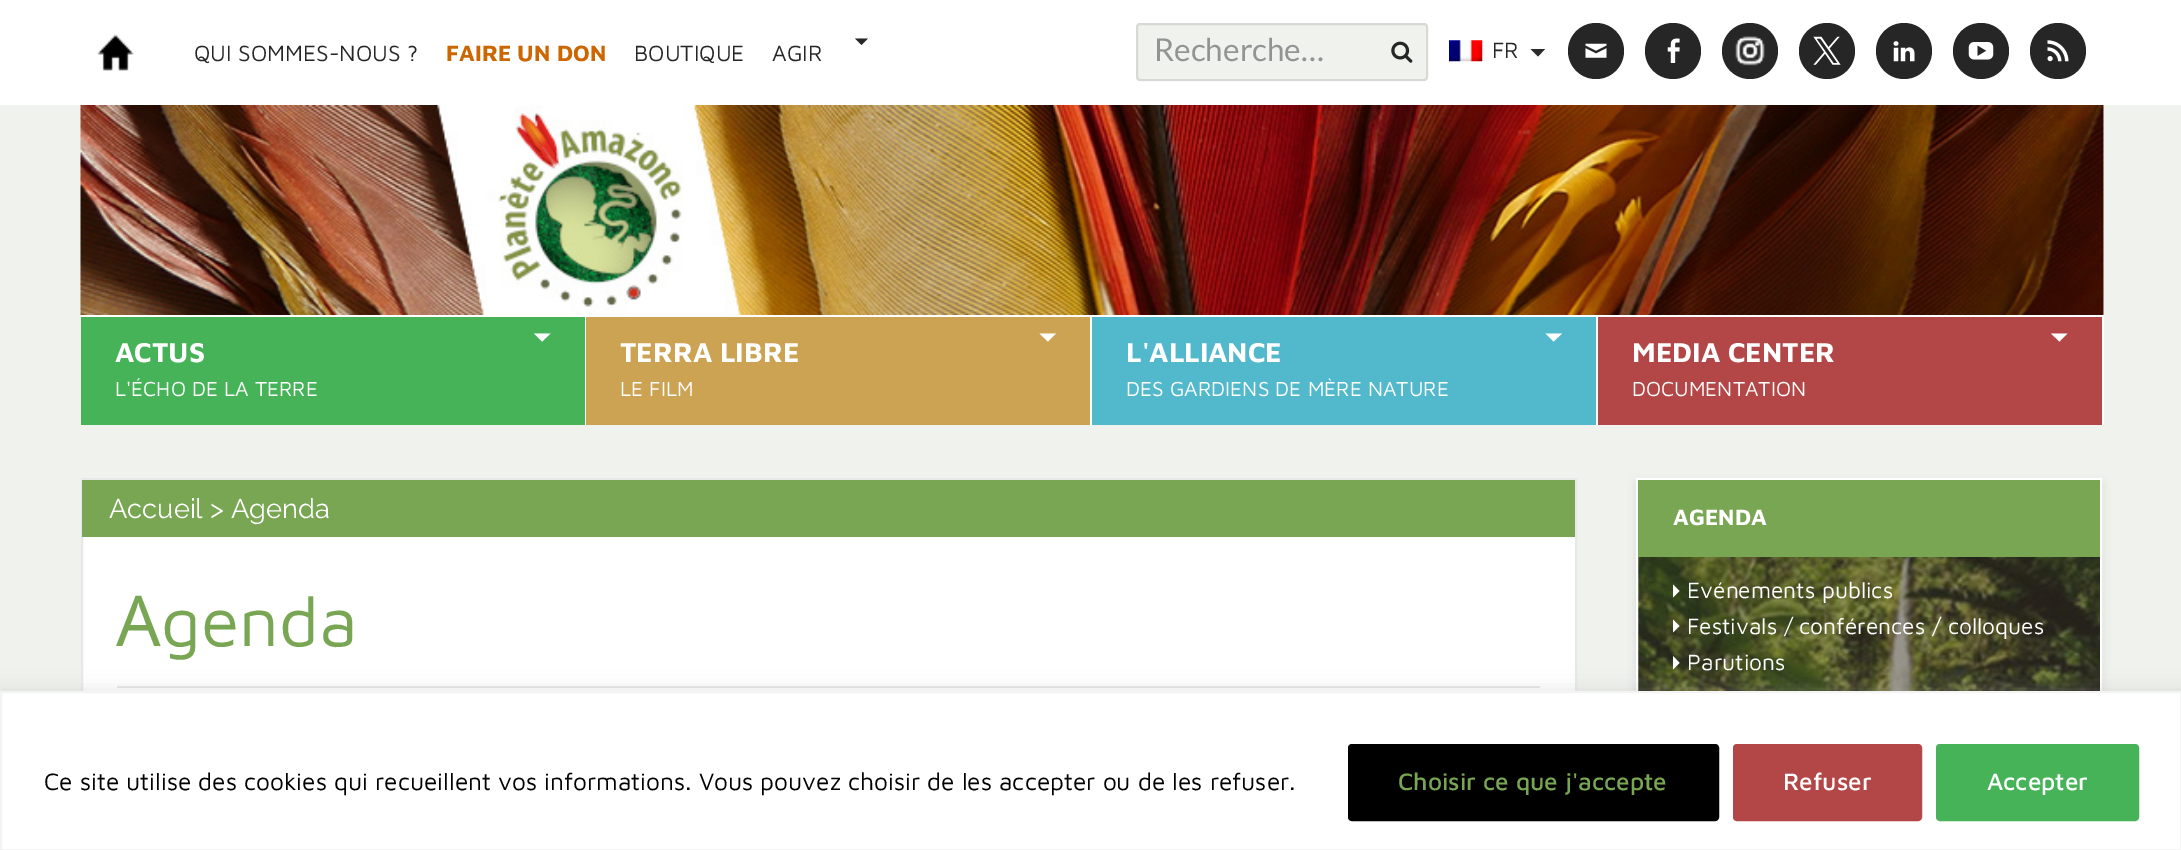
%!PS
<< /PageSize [2181 850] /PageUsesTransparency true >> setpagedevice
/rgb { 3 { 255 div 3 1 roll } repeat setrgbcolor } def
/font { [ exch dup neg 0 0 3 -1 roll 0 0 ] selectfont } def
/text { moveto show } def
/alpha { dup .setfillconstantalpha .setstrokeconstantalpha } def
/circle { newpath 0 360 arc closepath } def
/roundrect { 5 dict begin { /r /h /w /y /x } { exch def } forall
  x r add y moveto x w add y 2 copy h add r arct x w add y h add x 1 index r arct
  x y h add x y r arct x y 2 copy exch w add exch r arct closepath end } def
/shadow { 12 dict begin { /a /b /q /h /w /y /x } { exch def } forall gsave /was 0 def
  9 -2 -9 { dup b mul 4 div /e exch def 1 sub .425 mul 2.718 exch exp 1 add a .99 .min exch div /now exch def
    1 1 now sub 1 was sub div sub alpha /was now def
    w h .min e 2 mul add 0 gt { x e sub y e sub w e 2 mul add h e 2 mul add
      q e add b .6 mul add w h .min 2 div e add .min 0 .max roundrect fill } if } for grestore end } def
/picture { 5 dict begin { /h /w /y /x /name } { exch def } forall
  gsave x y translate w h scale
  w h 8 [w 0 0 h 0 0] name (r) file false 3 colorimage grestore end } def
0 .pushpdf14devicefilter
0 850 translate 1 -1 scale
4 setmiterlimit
255 255 255 rgb
0 0 2181 850 rectfill
239 242 237 rgb
0 105 2181 586 rectfill
255 255 255 rgb
81 105 2023 320 rectfill
(img_01.rgb) 97 34 37 37 picture
38 38 38 rgb
855 38.5 moveto 6.5 6.5 rlineto 6.5 -6.5 rlineto closepath fill
239 242 237 rgb
1136 23 292 58 4 roundrect fill
0.1 alpha
0 0 0 rgb
2 setlinewidth
1137 24 290 56 3 roundrect stroke
1 alpha
(img_02.rgb) 1391 41 22 22 picture
(img_03.rgb) 1449 40 34 22 picture
43 43 43 rgb
1530.5 49 moveto 7.5 7.5 rlineto 7 -7.5 rlineto closepath fill
38 38 38 rgb
1596 51 28 circle fill
(img_04.rgb) 1585 43 22 15 picture
1673 51 28 circle fill
(img_05.rgb) 1667 38 13 25 picture
1750 51 28 circle fill
(img_06.rgb) 1735 36 30 30 picture
1827 51 28 circle fill
(img_07.rgb) 1813 36 28 29 picture
1904 51 28 circle fill
(img_08.rgb) 1893 41 22 21 picture
1981 51 28 circle fill
(img_09.rgb) 1968 42 26 18 picture
2058 51 28 circle fill
(img_10.rgb) 2047 40 22 22 picture
(img_11.rgb) 80 105 2024 210 picture
71 179 89 rgb
81 317 504 108 rectfill
255 255 255 rgb
534 333.5 moveto 8 8 rlineto 8.5 -8 rlineto closepath fill
204 163 83 rgb
586 317 504 108 rectfill
255 255 255 rgb
1039.5 333.5 moveto 8.5 8 rlineto 8 -8 rlineto closepath fill
82 184 204 rgb
1092 317 504 108 rectfill
255 255 255 rgb
1545.5 333.5 moveto 8 8 rlineto 8.5 -8 rlineto closepath fill
179 71 71 rgb
1598 317 504 108 rectfill
255 255 255 rgb
2051 333.5 moveto 8.5 8 rlineto 8 -8 rlineto closepath fill
83 537 1492 154 rectfill
232 232 232 rgb
82 479 1494 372 rectstroke
121 166 83 rgb
82 480 1493 57 rectfill
230 230 230 rgb
117 686 1423 2 rectfill
0 0 0 rgb
1636 483 466 301 0 4.5 0.1 shadow
(img_12.rgb) 1638 557 462 134 picture
255 255 255 rgb
1637 479 464 299 rectstroke
121 166 83 rgb
1638 480 462 77 rectfill
255 255 255 rgb
1673 597.5 moveto 6.5 -6.5 rlineto -6.5 -6.5 rlineto closepath fill
1673 632.5 moveto 6.5 -6.5 rlineto -6.5 -6.5 rlineto closepath fill
1673 669.5 moveto 6.5 -6.5 rlineto -6.5 -7 rlineto closepath fill
172 171 171 rgb
0 690 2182 159 0 9 0.3 shadow
255 255 255 rgb
1 692 moveto 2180 0 rlineto 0 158 rlineto -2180 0 rlineto closepath gsave fill grestore
244 244 244 rgb
stroke
0 0 0 rgb
1350 746 367 73 2 roundrect gsave fill grestore
4 setlinewidth
stroke
179 71 71 rgb
1735 746 185 73 2 roundrect gsave fill grestore
stroke
71 179 89 rgb
1938 746 199 73 2 roundrect gsave fill grestore
stroke
/MavenPro-Regular 22.75 font
38 38 38 rgb
(QUI SOMMES-NOUS ?) 194 61 text
/MavenPro-Bold 22.75 font
204 102 0 rgb
(FAIRE UN DON) 446 61 text
/MavenPro-Regular 22.75 font
38 38 38 rgb
(BOUTIQUE) 634 61 text
(AGIR) 772 61 text
/Lato-Regular 31.5 font
147 147 147 rgb
(Recherche…) 1154 61 text
/MavenPro-Regular 22.75 font
38 38 38 rgb
(FR) 1492 58 text
/MavenPro-Bold 28 font
255 255 255 rgb
(ACTUS) 115 362 text
/MavenPro-Regular 21 font
(L'ÉCHO DE LA TERRE) 115 396 text
/MavenPro-Bold 28 font
(TERRA LIBRE) 620 362 text
/MavenPro-Regular 21 font
(LE FILM) 620 396 text
/MavenPro-Bold 28 font
(L'ALLIANCE) 1126 362 text
/MavenPro-Regular 21 font
(DES GARDIENS DE MÈRE NATURE) 1126 396 text
/MavenPro-Bold 28 font
(MEDIA CENTER) 1632 362 text
/MavenPro-Regular 21 font
(DOCUMENTATION) 1632 396 text
/Raleway-Regular 27.25 font
(Accueil > Agenda) 109 518 text
/NotoSans-Regular 70 font
121 166 83 rgb
(A) 116 646 text
/MavenPro-Regular 70 font
(genda) 161 646 text
/MavenPro-Bold 22.75 font
255 255 255 rgb
(AGENDA) 1673 525 text
/MavenPro-Regular 22.75 font
(Evénements publics) 1687 598 text
(Festivals / conférences / colloques) 1687 634 text
(Parutions) 1687 670 text
/MavenPro-Regular 24.5 font
0 0 0 rgb
(Ce site utilise des cookies qui recueillent vos informations. Vous pouvez choisir de les accepter ou de les refuser.) 44 790 text
/MavenPro-Medium 24.5 font
121 166 83 rgb
(Choisir ce que j'accepte) 1398 790 text
255 255 255 rgb
(Refuser) 1783 790 text
(Accepter) 1987 790 text
.poppdf14devicefilter showpage
